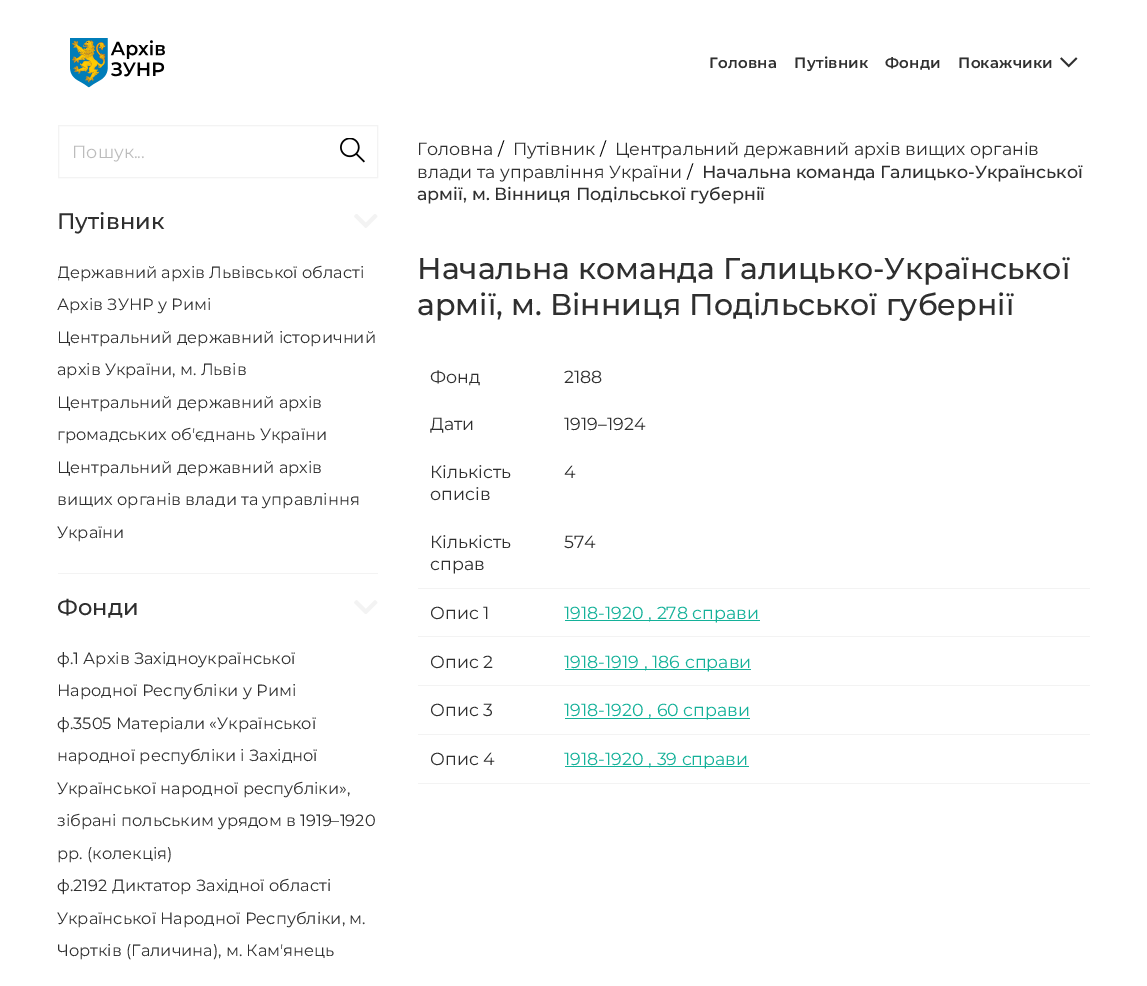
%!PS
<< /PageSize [1147 986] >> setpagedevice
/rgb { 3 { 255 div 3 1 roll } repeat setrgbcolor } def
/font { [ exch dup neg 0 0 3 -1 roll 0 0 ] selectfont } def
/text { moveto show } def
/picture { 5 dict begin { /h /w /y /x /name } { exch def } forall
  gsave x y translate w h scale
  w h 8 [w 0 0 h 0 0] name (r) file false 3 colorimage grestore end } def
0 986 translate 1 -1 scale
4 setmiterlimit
255 255 255 rgb
0 0 1147 986 rectfill
(img_01.rgb) 70 38 95 50 picture
(img_02.rgb) 1060 57 18 11 picture
243 243 243 rgb
58.5 125.5 319 52 rectstroke
(img_03.rgb) 340 138 25 25 picture
58 573 320 1 rectfill
(img_04.rgb) 354 214 24 14 picture
(img_05.rgb) 354 600 24 14 picture
418 588 672 1 rectfill
418 636 672 1 rectfill
20 177 153 rgb
565 620 195 1 rectfill
243 243 243 rgb
418 685 672 1 rectfill
20 177 153 rgb
565 669 186 1 rectfill
243 243 243 rgb
418 734 672 1 rectfill
20 177 153 rgb
565 718 185 1 rectfill
243 243 243 rgb
418 783 672 1 rectfill
20 177 153 rgb
565 766 184 1 rectfill
/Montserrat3-Thin 15 font
47 47 47 rgb
709 68 moveto 0.25 0 (Головна) ashow
794 68 moveto 0.25 0 (Путівник) ashow
885 68 moveto 0.25 0 (Фонди) ashow
958 68 moveto 0.25 0 (Покажчики) ashow
/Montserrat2-Thin 17.5 font
188 188 188 rgb
(Пошук...) 72 158 text
/Montserrat-Thin 22.5 font
47 47 47 rgb
(Путівник) 57 229 text
gsave
58 255 320 293 rectclip
/Montserrat2-Thin 16.25 font
(Державний архів Львівської області) 57 278 text
grestore
/Montserrat2-Thin 16.25 font
(Архів ЗУНР у Римі) 57 310 text
(Центральний державний історичний) 57 343 text
(архів України, м. Львів) 57 375 text
(Центральний державний архів) 57 408 text
(громадських об'єднань України) 57 440 text
(Центральний державний архів) 57 473 text
(вищих органів влади та управління) 57 505 text
(України) 57 538 text
/Montserrat-Thin 22.5 font
(Фонди) 57 615 text
/Montserrat2-Thin 16.25 font
(ф.1 Архів Західноукраїнської) 57 664 text
(Народної Республіки у Римі) 57 696 text
(ф.3505 Матеріали «Української) 57 729 text
(народної республіки і Західної) 57 761 text
(Української народної республіки»,) 57 794 text
(зібрані польським урядом в 1919–1920) 57 826 text
(рр. \(колекція\)) 57 859 text
(ф.2192 Диктатор Захiдної областi) 57 891 text
(Української Народної Республiки, м.) 57 924 text
(Чорткiв \(Галичина\), м. Кам'янець) 57 956 text
/Montserrat2-Thin 17.5 font
(Головна) 417 155 text
0 0 0 rgb
(/) 498 155 text
47 47 47 rgb
(Путівник) 513 155 text
0 0 0 rgb
(/) 600 155 text
47 47 47 rgb
(Центральний державний архів вищих органів) 615 155 text
(влади та управління України) 417 178 text
0 0 0 rgb
(/) 687 178 text
/Montserrat-Thin 17.5 font
47 47 47 rgb
(Начальна команда Галицько-Української) 702 178 text
(армiї, м. Вiнниця Подiльської губернiї) 417 200 text
/Montserrat-Thin 30 font
(Начальна команда Галицько-Української) 417 279 text
(армiї, м. Вiнниця Подiльської губернiї) 417 315 text
/Montserrat2-Thin 17.5 font
(Фонд) 430 383 text
(2188) 564 383 text
(Дати) 430 430 text
(1919–1924) 564 430 text
(Кількість) 430 478 text
(описів) 430 500 text
(4) 564 478 text
(Кількість) 430 548 text
(справ) 430 570 text
(574) 564 548 text
(Опис 1) 430 619 text
20 177 153 rgb
(1918-1920 , 278 справи) 564 619 text
47 47 47 rgb
(Опис 2) 430 668 text
20 177 153 rgb
(1918-1919 , 186 справи) 564 668 text
47 47 47 rgb
(Опис 3) 430 716 text
20 177 153 rgb
(1918-1920 , 60 справи) 564 716 text
47 47 47 rgb
(Опис 4) 430 765 text
20 177 153 rgb
(1918-1920 , 39 справи) 564 765 text
showpage
